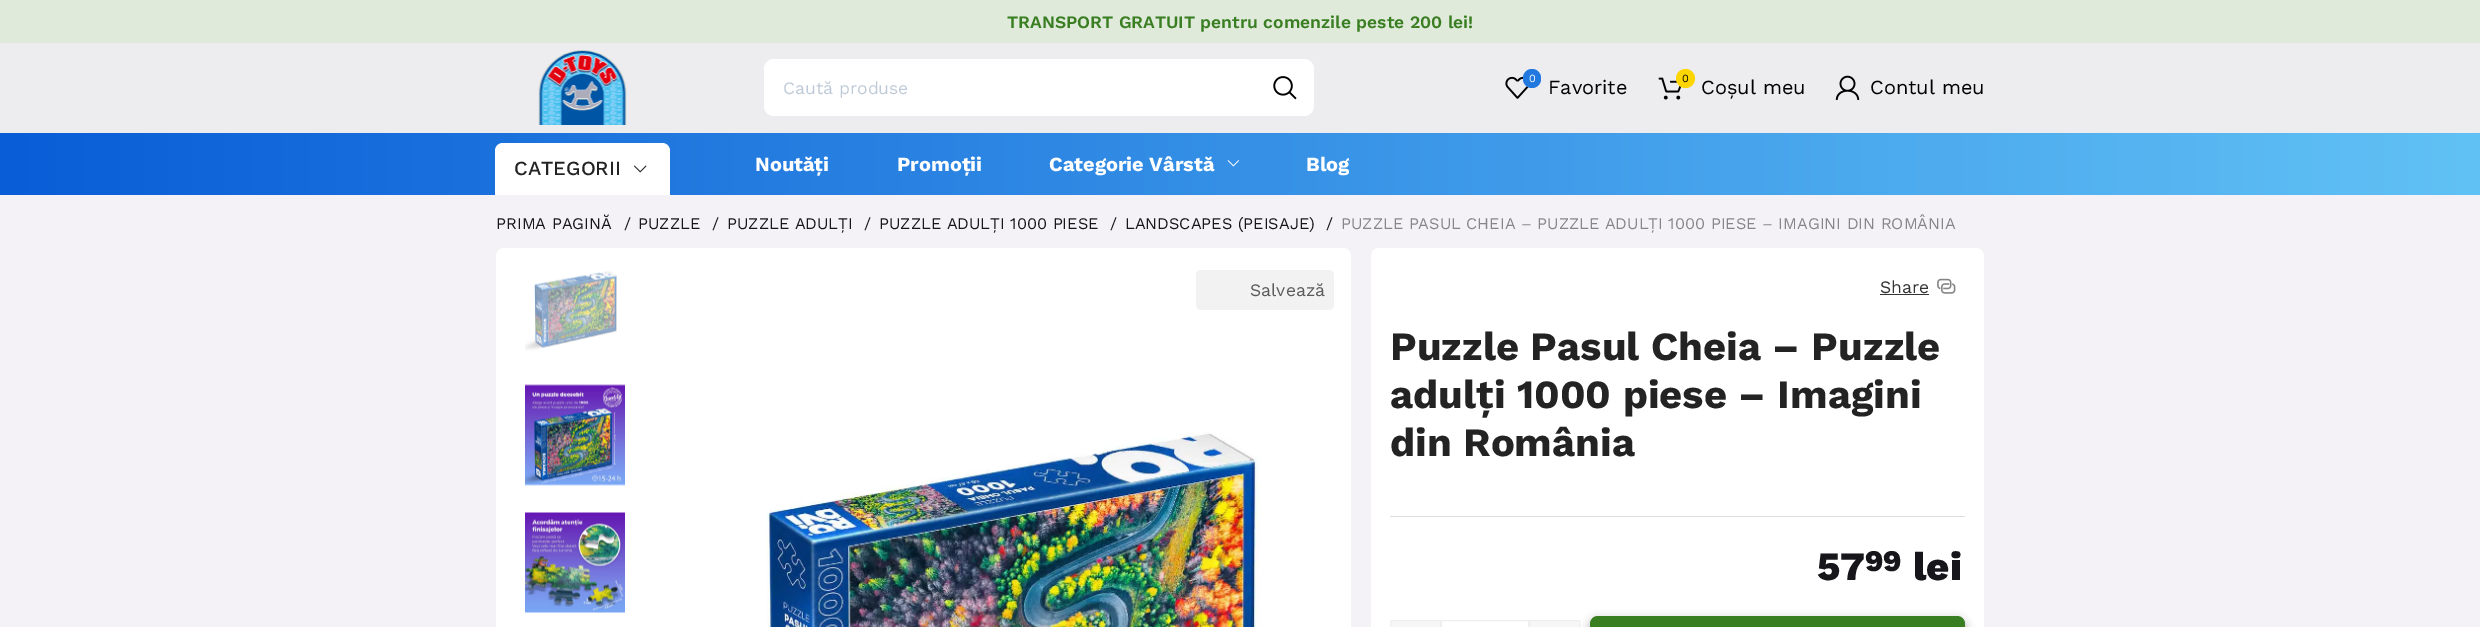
%!PS
<< /PageSize [2480 627] /PageUsesTransparency true >> setpagedevice
/rgb { 3 { 255 div 3 1 roll } repeat setrgbcolor } def
/font { [ exch dup neg 0 0 3 -1 roll 0 0 ] selectfont } def
/text { moveto show } def
/alpha { dup .setfillconstantalpha .setstrokeconstantalpha } def
/circle { newpath 0 360 arc closepath } def
/roundrect { 5 dict begin { /r /h /w /y /x } { exch def } forall
  x r add y moveto x w add y 2 copy h add r arct x w add y h add x 1 index r arct
  x y h add x y r arct x y 2 copy exch w add exch r arct closepath end } def
/shadow { 12 dict begin { /a /b /q /h /w /y /x } { exch def } forall gsave /was 0 def
  9 -2 -9 { dup b mul 4 div /e exch def 1 sub .425 mul 2.718 exch exp 1 add a .99 .min exch div /now exch def
    1 1 now sub 1 was sub div sub alpha /was now def
    w h .min e 2 mul add 0 gt { x e sub y e sub w e 2 mul add h e 2 mul add
      q e add b .6 mul add w h .min 2 div e add .min 0 .max roundrect fill } if } for grestore end } def
/picture { 5 dict begin { /h /w /y /x /name } { exch def } forall
  gsave x y translate w h scale
  w h 8 [w 0 0 h 0 0] name (r) file false 3 colorimage grestore end } def
0 .pushpdf14devicefilter
0 627 translate 1 -1 scale
4 setmiterlimit
223 234 219 rgb
0 0 2480 627 rectfill
237 236 238 rgb
0 43 2480 90 rectfill
(img_01.rgb) 538 50 89 75 picture
255 255 255 rgb
764 59 550 57 10 roundrect fill
(img_02.rgb) 1273 76 24 24 picture
(img_03.rgb) 1505 76 24 23 picture
33 121 223 rgb
1523 69 18 19 9 roundrect fill
(img_04.rgb) 1658 77 24 23 picture
253 214 2 rgb
1685.5 78.5 9.5 circle fill
(img_05.rgb) 1835 75 25 25 picture
gsave 0 133 moveto 2480 0 rlineto 0 62 rlineto -2480 0 rlineto closepath clip newpath
<< /ShadingType 2 /ColorSpace /DeviceRGB /Coords [0 164 2480 164] /Extend [true true] /Function << /FunctionType 2 /Domain [0 1] /C0 [0.035 0.365 0.843] /C1 [0.38 0.761 0.961] /N 1 >> >> shfill grestore
255 255 255 rgb
503 143 moveto 159 0 rlineto 4.5 0 8 3.5 8 8 rcurveto 0 44 rlineto -175 0 rlineto 0 -44 rlineto 0 -4.5 3.5 -8 8 -8 rcurveto closepath fill
(img_06.rgb) 633 165 14 8 picture
(img_07.rgb) 1227 160 12 7 picture
244 242 247 rgb
0 195 2480 432 rectfill
255 255 255 rgb
496 248 855 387 8 roundrect fill
(img_08.rgb) 525 271 92 80 picture
(img_09.rgb) 525 384 100 102 picture
(img_10.rgb) 525 512 100 101 picture
(img_11.rgb) 766 432 496 195 picture
1371 248 613 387 8 roundrect fill
242 242 242 rgb
1196 270 138 40 5 roundrect fill
51 51 51 rgb
1880 294 49 1 rectfill
(img_12.rgb) 1937 278 19 16 picture
221 221 221 rgb
1390 516 575 1 rectfill
247 247 247 rgb
1390.5 620.5 moveto 50 0 rlineto 0 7 rlineto -50 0 rlineto closepath gsave fill grestore
239 239 239 rgb
stroke
1441.5 620.5 87 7 rectstroke
247 247 247 rgb
1529.5 620.5 moveto 50 0 rlineto 0 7 rlineto -50 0 rlineto closepath gsave fill grestore
239 239 239 rgb
stroke
0 0 0 rgb
1590 620 375 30 8 5 0.36 shadow
58 126 34 rgb
1590 616 375 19 8 roundrect fill
/WorkSans-SemiBold 17.5 font
(TRANSPORT GRATUIT pentru comenzile peste 200 lei!) 1007 28 text
/WorkSans-Regular 17.5 font
191 202 216 rgb
(Caută produse) 783 94 text
/WorkSans-Regular 11 font
255 255 255 rgb
(0) 1529 82 text
/WorkSans-Regular 20 font
0 0 0 rgb
(Favorite) 1548 94 text
/WorkSans-Regular 11 font
(0) 1682 82 text
/WorkSans-Regular 20 font
(Coșul meu) 1701 94 text
(Contul meu) 1870 94 text
/WorkSans-Medium 20 font
35 35 35 rgb
(CATEGORII) 514 175 text
/WorkSans-Bold 20 font
255 255 255 rgb
(Noutăți) 755 171 text
(Promoții) 897 171 text
(Categorie Vârstă) 1049 171 text
(Blog) 1306 171 text
/WorkSans-Regular 16.25 font
23 23 27 rgb
(PRIMA PAGINĂ) 496 229 text
(/) 624 229 text
(PUZZLE) 638 229 text
(/) 712 229 text
(PUZZLE ADULȚI) 727 229 text
(/) 864 229 text
(PUZZLE ADULȚI 1000 PIESE) 879 229 text
(/) 1110 229 text
(LANDSCAPES \(PEISAJE\)) 1125 229 text
(/) 1326 229 text
134 134 134 rgb
(PUZZLE PASUL CHEIA – PUZZLE ADULȚI 1000 PIESE – IMAGINI DIN ROMÂNIA) 1341 229 text
/WorkSans-Regular 17.5 font
91 91 91 rgb
(Salvează) 1250 296 text
51 51 51 rgb
(Share) 1880 293 text
/WorkSans-Bold 40 font
35 35 35 rgb
(Puzzle Pasul Cheia – Puzzle) 1390 360 text
(adulți 1000 piese – Imagini) 1390 408 text
(din România) 1390 456 text
/WorkSans-ExtraBold 40 font
23 23 27 rgb
(57) 1817 580 text
/WorkSans-ExtraBold 30 font
(99) 1865 571 text
/WorkSans-ExtraBold 40 font
(lei) 1913 580 text
.poppdf14devicefilter showpage
